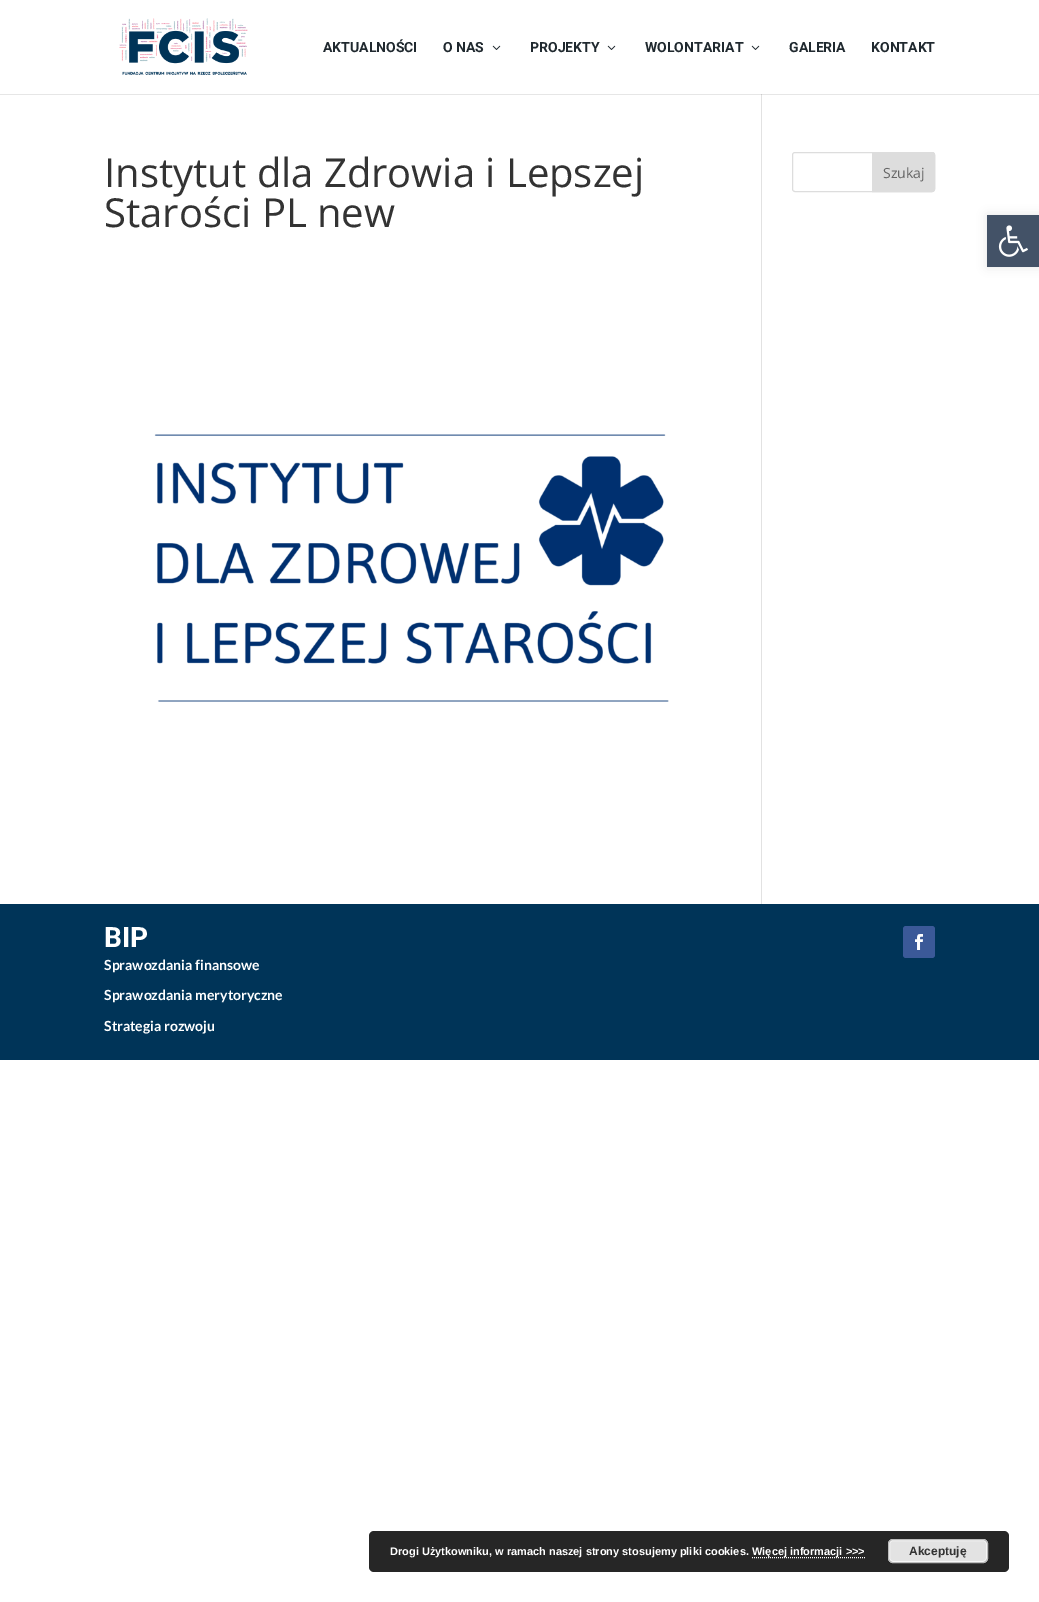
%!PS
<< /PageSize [1039 1602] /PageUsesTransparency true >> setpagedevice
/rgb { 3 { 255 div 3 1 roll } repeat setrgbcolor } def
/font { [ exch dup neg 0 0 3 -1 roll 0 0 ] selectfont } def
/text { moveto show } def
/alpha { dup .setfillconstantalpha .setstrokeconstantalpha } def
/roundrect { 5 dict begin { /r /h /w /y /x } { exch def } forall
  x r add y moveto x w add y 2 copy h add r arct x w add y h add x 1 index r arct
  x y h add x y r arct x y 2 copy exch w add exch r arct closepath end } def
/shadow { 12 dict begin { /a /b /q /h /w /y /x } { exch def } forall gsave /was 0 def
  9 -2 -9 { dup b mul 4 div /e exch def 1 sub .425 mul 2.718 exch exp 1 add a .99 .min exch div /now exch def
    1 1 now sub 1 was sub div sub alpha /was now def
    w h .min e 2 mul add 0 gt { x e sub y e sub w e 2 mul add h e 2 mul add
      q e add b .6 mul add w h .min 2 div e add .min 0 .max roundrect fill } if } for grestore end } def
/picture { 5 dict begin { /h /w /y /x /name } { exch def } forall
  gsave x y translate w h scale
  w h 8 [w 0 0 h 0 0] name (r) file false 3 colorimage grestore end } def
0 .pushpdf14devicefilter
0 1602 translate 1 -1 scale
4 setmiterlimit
255 255 255 rgb
0 0 1039 1602 rectfill
230 230 230 rgb
0 94 1039 1 rectfill
(img_01.rgb) 119 18 129 57 picture
(img_02.rgb) 492 45 9 5 picture
(img_02.rgb) 607 45 9 5 picture
(img_02.rgb) 751 45 9 5 picture
226 226 226 rgb
761 94 1 810 rectfill
203 203 203 rgb
761 94 1 1 rectfill
(img_03.rgb) 154 434 515 268 picture
221 221 221 rgb
792.5 152.5 142 39 2.5 roundrect stroke
872.5 152.5 moveto 59.5 0 rlineto 1.5 0 2.5 1 2.5 2.5 rcurveto 0 34 rlineto 0 1.5 -1 2.5 -2.5 2.5 rcurveto -59.5 0 rlineto closepath gsave fill grestore
stroke
0 52 88 rgb
0 904 1039 156 rectfill
59 89 152 rgb
903 926 32 32 3 roundrect fill
(img_04.rgb) 915 934 8 16 picture
0 0 0 rgb
987 215 52 52 0 5 0.1 shadow
67 82 103 rgb
987 215 52 52 rectfill
(img_05.rgb) 998 225 30 32 picture
38 38 38 rgb
369 1531 640 41 5 roundrect fill
255 255 255 rgb
[1 1] 0 setdash
752 1557.5 moveto 113 0 rlineto stroke
227 227 227 rgb
888 1539 100 24 5 roundrect fill
246 246 246 rgb
[] 0 setdash
889.5 1540.5 97 21 3.5 roundrect stroke
187 187 187 rgb
888.5 1539.5 99 23 4.5 roundrect stroke
/Roboto-Bold 14 font
32 41 47 rgb
(AKTUALNOŚCI) 323 52 text
(O NAS) 443 52 text
(PROJEKTY) 530 52 text
(WOLONTARIAT) 645 52 text
(GALERIA) 789 52 text
(KONTAKT) 871 52 text
/OpenSans-Regular 40 font
51 51 51 rgb
(Instytut dla Zdrowia i Lepszej) 104 187 text
(Starości PL new) 104 227 text
/OpenSans-Regular 14 font
102 102 102 rgb
(Szukaj) 883 178 text
/Roboto-Bold 28 font
255 255 255 rgb
(BIP) 104 947 text
/Lato-Bold 14 font
(Sprawozdania finansowe) 104 970 text
(Sprawozdania merytoryczne) 104 1000 text
(Strategia rozwoju) 104 1031 text
/LiberationSans-Bold 11 font
(Drogi Użytkowniku, w ramach naszej strony stosujemy pliki cookies.) 390 1555 text
(Więcej informacji >>>) 752 1555 text
/LiberationSans-Bold 12 font
51 51 51 rgb
(Akceptuję) 909 1555 text
.poppdf14devicefilter showpage
